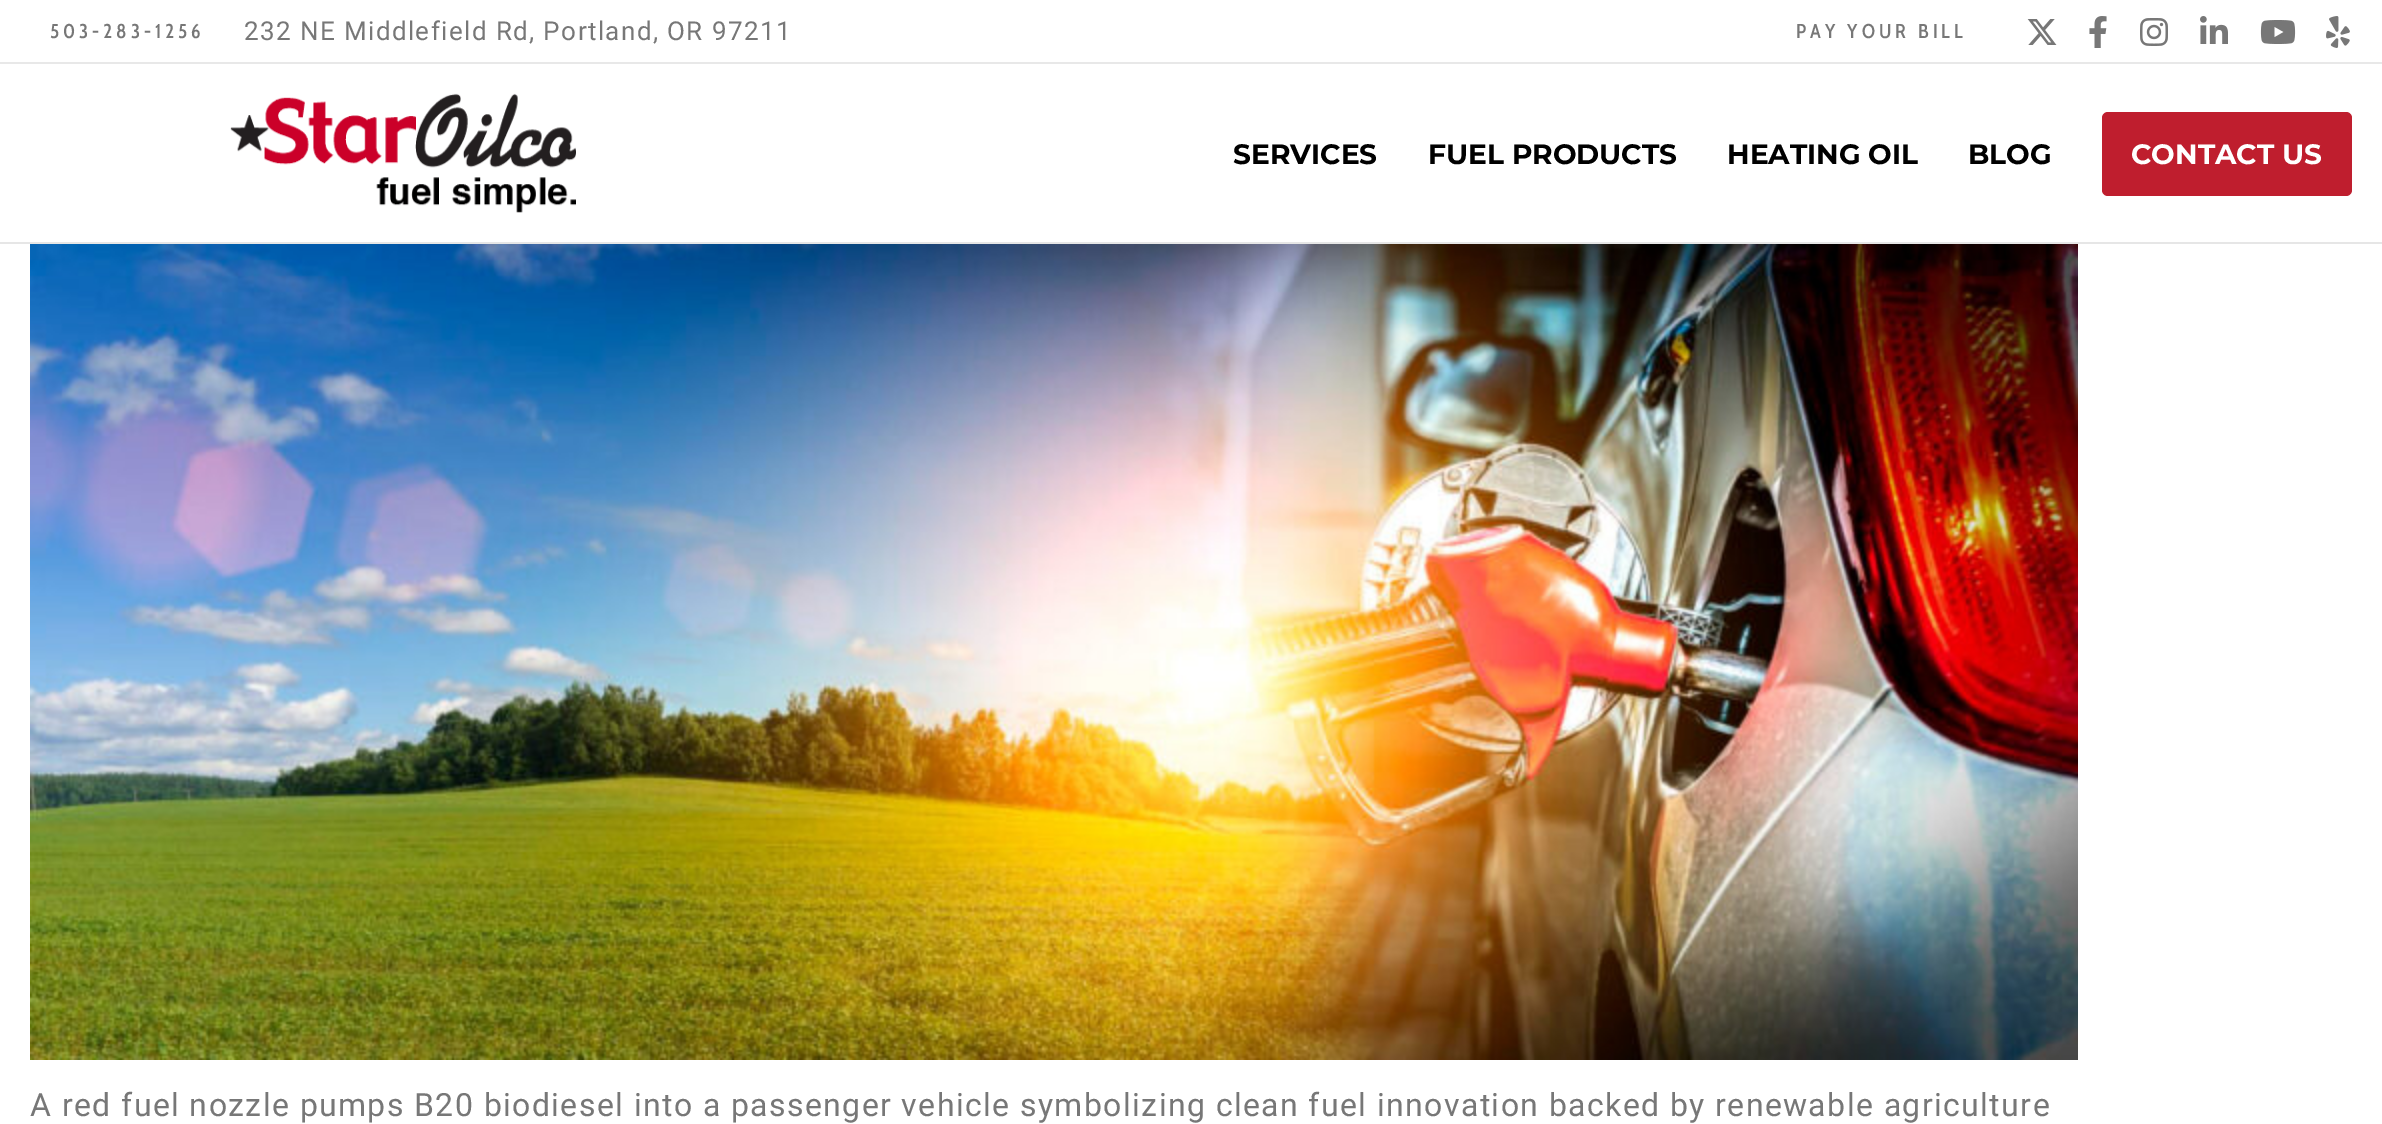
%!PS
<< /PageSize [2382 1124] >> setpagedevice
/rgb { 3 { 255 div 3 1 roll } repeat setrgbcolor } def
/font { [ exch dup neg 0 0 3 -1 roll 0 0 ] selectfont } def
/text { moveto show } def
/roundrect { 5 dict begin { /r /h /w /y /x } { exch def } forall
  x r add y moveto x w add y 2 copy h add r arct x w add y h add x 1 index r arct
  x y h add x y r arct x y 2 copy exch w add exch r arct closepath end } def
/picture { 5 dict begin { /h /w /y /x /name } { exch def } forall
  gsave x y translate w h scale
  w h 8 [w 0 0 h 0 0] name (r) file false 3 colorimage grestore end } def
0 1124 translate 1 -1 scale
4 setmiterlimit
255 255 255 rgb
0 0 2382 1124 rectfill
232 232 232 rgb
0 62 2382 2 rectfill
(img_01.rgb) 2027 19 30 26 picture
(img_02.rgb) 2089 16 18 32 picture
(img_03.rgb) 2140 18 28 28 picture
(img_04.rgb) 2200 16 28 28 picture
(img_05.rgb) 2260 20 36 24 picture
(img_06.rgb) 2326 16 24 32 picture
230 230 230 rgb
0 242 2382 2 rectfill
(img_07.rgb) 230 93 346 120 picture
191 30 46 rgb
2102 112 250 84 6 roundrect fill
(img_08.rgb) 30 244 2048 816 picture
/CabinCondensed-Medium 20 font
119 119 119 rgb
50 38 moveto 4 0 (503-283-1256) ashow
/Roboto-Regular 26 font
244 40 moveto 1.4 0 (232 NE Middlefield Rd, Portland, OR 97211) ashow
/CabinCondensed-Medium 20 font
1796 38 moveto 4 0 (PAY YOUR BILL) ashow
/Montserrat-Thin 28 font
0 0 0 rgb
(SERVICES) 1233 164 text
(FUEL PRODUCTS) 1428 164 text
(HEATING OIL) 1727 164 text
(BLOG) 1968 164 text
255 255 255 rgb
(CONTACT US) 2131 164 text
/Roboto-Regular 32 font
119 119 119 rgb
30 1116 moveto 1.4 0 (A red fuel nozzle pumps B20 biodiesel into a passenger vehicle symbolizing clean fuel innovation backed by renewable agriculture) ashow
showpage
